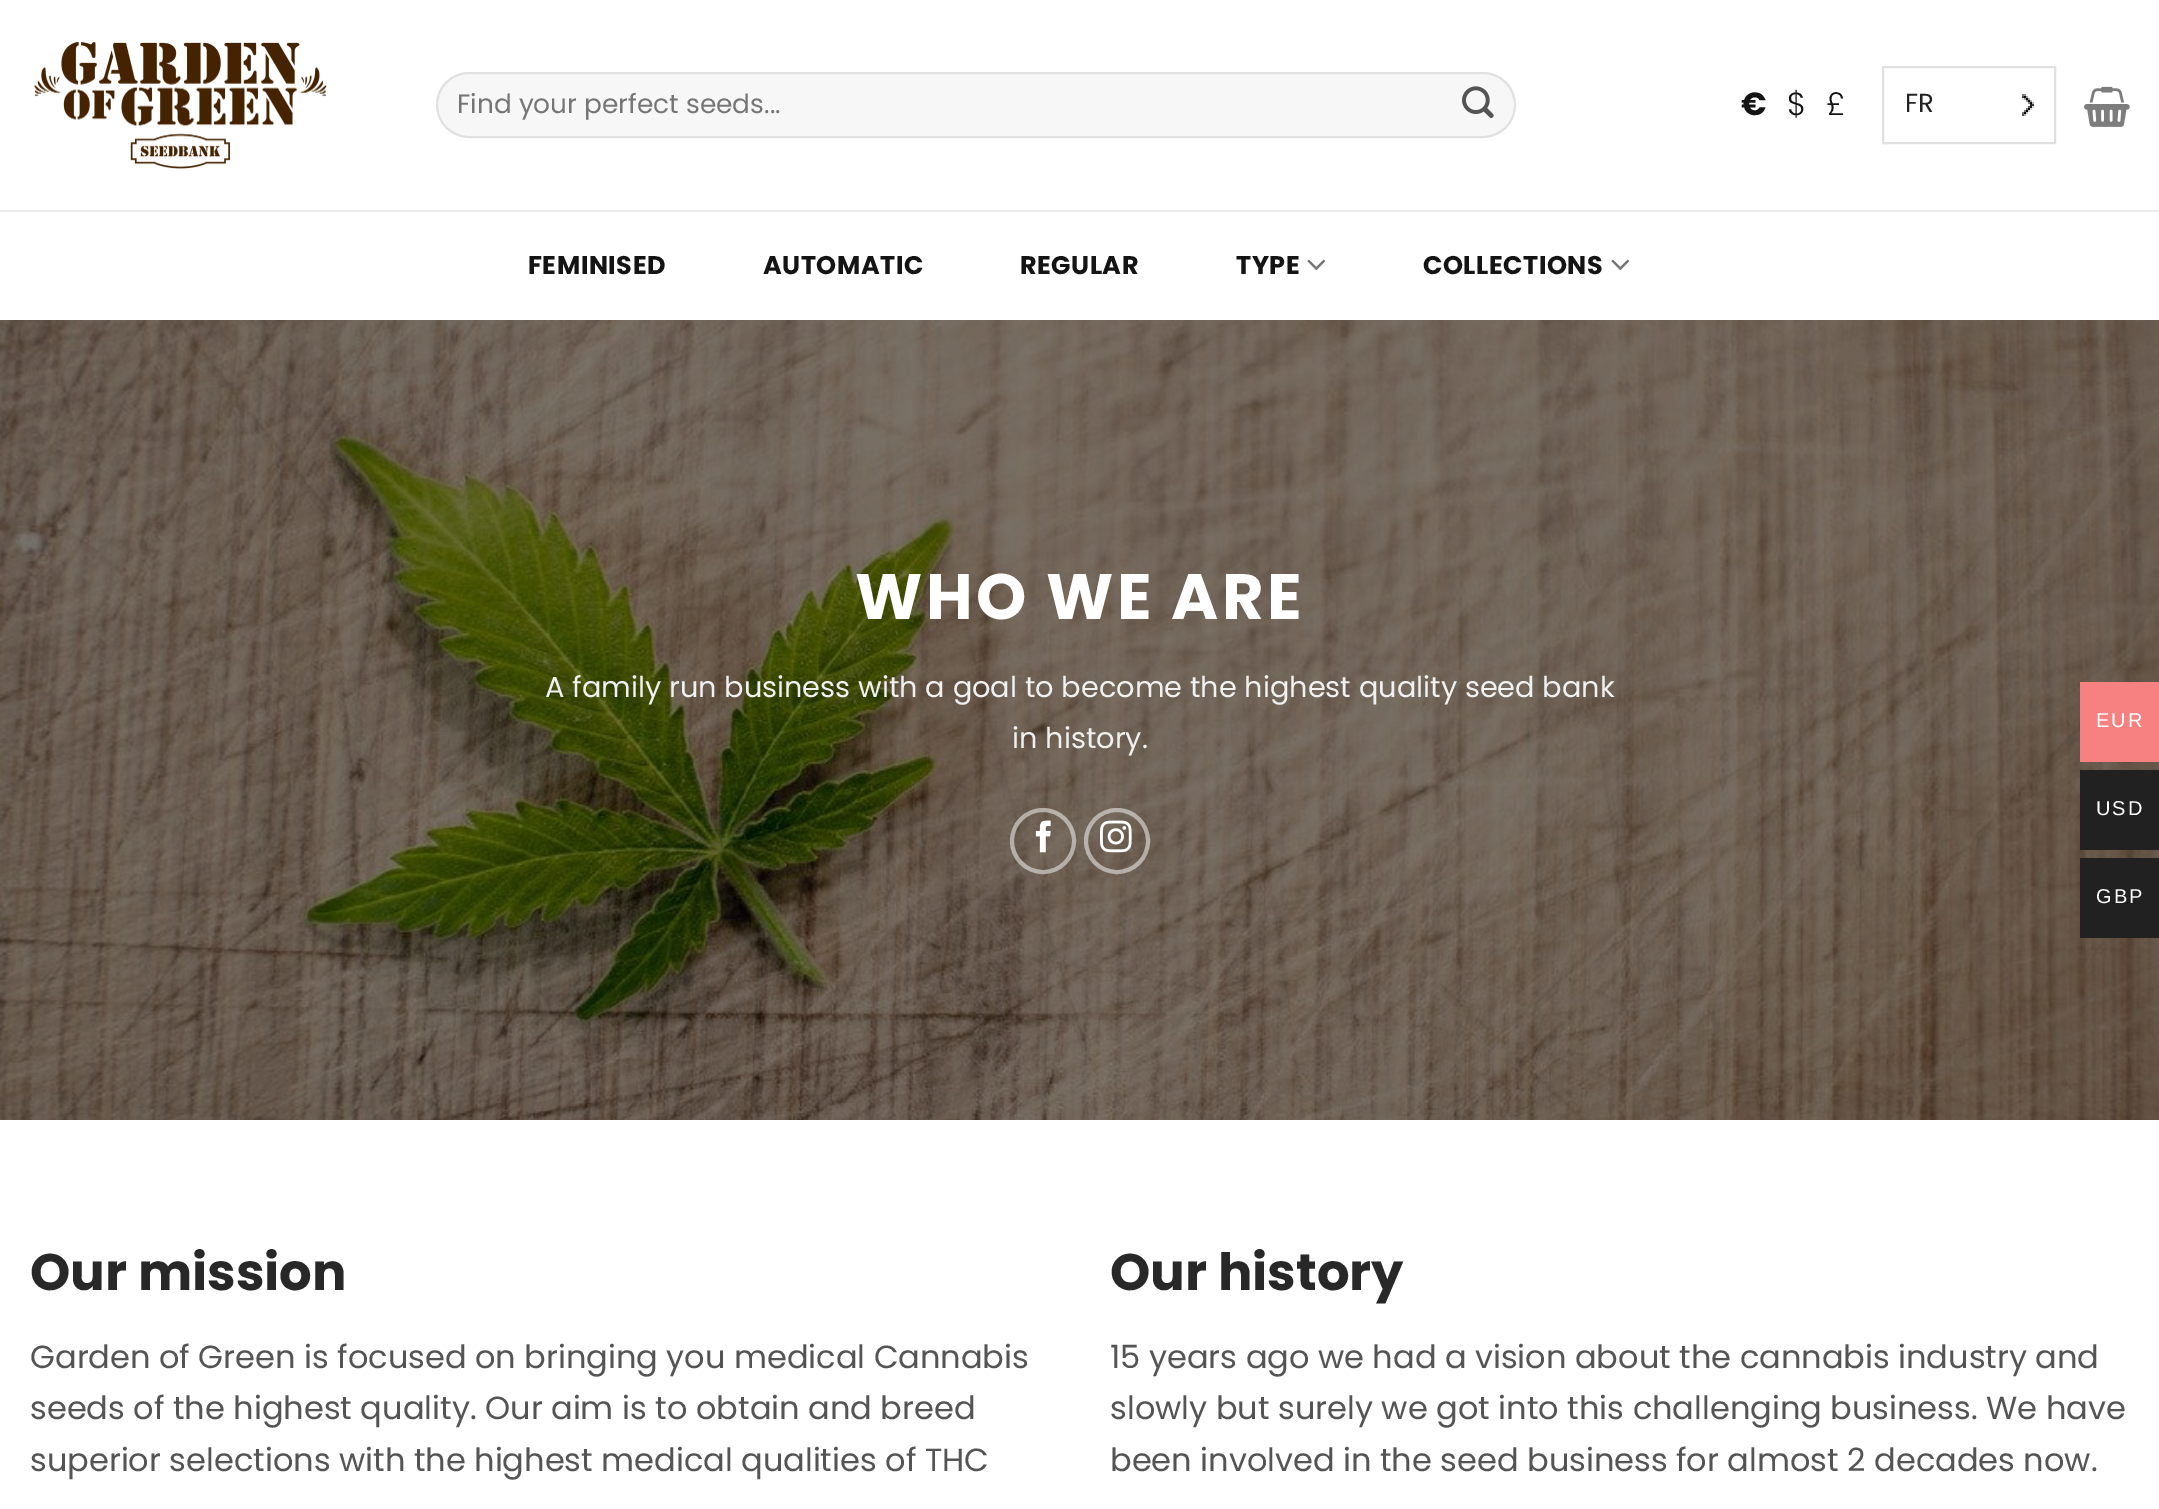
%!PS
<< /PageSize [2159 1509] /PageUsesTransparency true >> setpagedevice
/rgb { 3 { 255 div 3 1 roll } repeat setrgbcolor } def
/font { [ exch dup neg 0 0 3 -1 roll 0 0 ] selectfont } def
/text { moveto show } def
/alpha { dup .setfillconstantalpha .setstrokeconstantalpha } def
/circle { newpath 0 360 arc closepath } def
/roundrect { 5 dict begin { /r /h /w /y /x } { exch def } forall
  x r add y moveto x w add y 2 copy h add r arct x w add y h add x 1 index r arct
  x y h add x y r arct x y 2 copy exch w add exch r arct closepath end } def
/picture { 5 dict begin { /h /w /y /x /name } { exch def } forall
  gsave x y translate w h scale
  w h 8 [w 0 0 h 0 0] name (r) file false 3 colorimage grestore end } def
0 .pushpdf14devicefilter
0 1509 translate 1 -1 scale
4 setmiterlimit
255 255 255 rgb
0 0 2159 1509 rectfill
(img_01.rgb) 34 42 293 128 picture
247 247 247 rgb
436 72 1080 66 33 roundrect fill
0.09 alpha
0 0 0 rgb
2 setlinewidth
437 73 1078 64 32 roundrect stroke
1 alpha
(img_02.rgb) 1462 86 32 32 picture
224 224 224 rgb
1883 67 172 76 rectstroke
(img_03.rgb) 2022 94 12 22 picture
(img_04.rgb) 2084 86 46 41 picture
235 235 235 rgb
0 210 2159 2 rectfill
(img_05.rgb) 1307 259 19 11 picture
(img_05.rgb) 1611 259 19 11 picture
(img_06.rgb) 0 320 2159 800 picture
0.5 alpha
255 255 255 rgb
4 setlinewidth
1043 841 31 circle stroke
1 alpha
(img_07.rgb) 1035 820 16 33 picture
0.5 alpha
1117 841 31 circle stroke
1 alpha
(img_08.rgb) 1100 820 32 33 picture
247 128 128 rgb
2080 682 79 80 rectfill
33 33 33 rgb
2080 770 79 80 rectfill
2080 858 79 80 rectfill
/Poppins-Regular 26.4 font
117 117 117 rgb
(Find your perfect seeds...) 457 113 text
/Poppins-Bold 32 font
20 20 20 rgb
(€) 1741 115 text
/Poppins-Light 32 font
($) 1787 115 text
(£) 1826 115 text
/Poppins-Regular 26 font
34 34 34 rgb
(FR) 1905 112 text
/Poppins-Bold 25.5 font
20 20 20 rgb
528 274 moveto 0.5 0 (FEMINISED) ashow
763 274 moveto 0.5 0 (AUTOMATIC) ashow
1020 274 moveto 0.5 0 (REGULAR) ashow
1236 274 moveto 0.5 0 (TYPE) ashow
1423 274 moveto 0.5 0 (COLLECTIONS) ashow
/Poppins-Bold 64 font
255 255 255 rgb
855 619 moveto 3.25 0 (WHO WE ARE) ashow
/Poppins-Regular 28.8 font
241 241 241 rgb
(A family run business with a goal to become the highest quality seed bank) 545 697 text
(in history.) 1012 748 text
/Poppins-Bold 51.25 font
40 40 40 rgb
(Our mission) 30 1290 text
/Poppins-Regular 32 font
84 84 84 rgb
(Garden of Green is focused on bringing you medical Cannabis) 30 1368 text
(seeds of the highest quality. Our aim is to obtain and breed) 30 1419 text
(superior selections with the highest medical qualities of THC) 30 1471 text
/Poppins-Bold 51.25 font
40 40 40 rgb
(Our history) 1110 1290 text
/Poppins-Regular 32 font
84 84 84 rgb
(15 years ago we had a vision about the cannabis industry and) 1110 1368 text
(slowly but surely we got into this challenging business. We have) 1110 1419 text
(been involved in the seed business for almost 2 decades now.) 1110 1471 text
/LiberationSans-Regular 20 font
255 255 255 rgb
2096 727 moveto 2 0 (EUR) ashow
2096 815 moveto 2 0 (USD) ashow
2096 903 moveto 2 0 (GBP) ashow
.poppdf14devicefilter showpage
